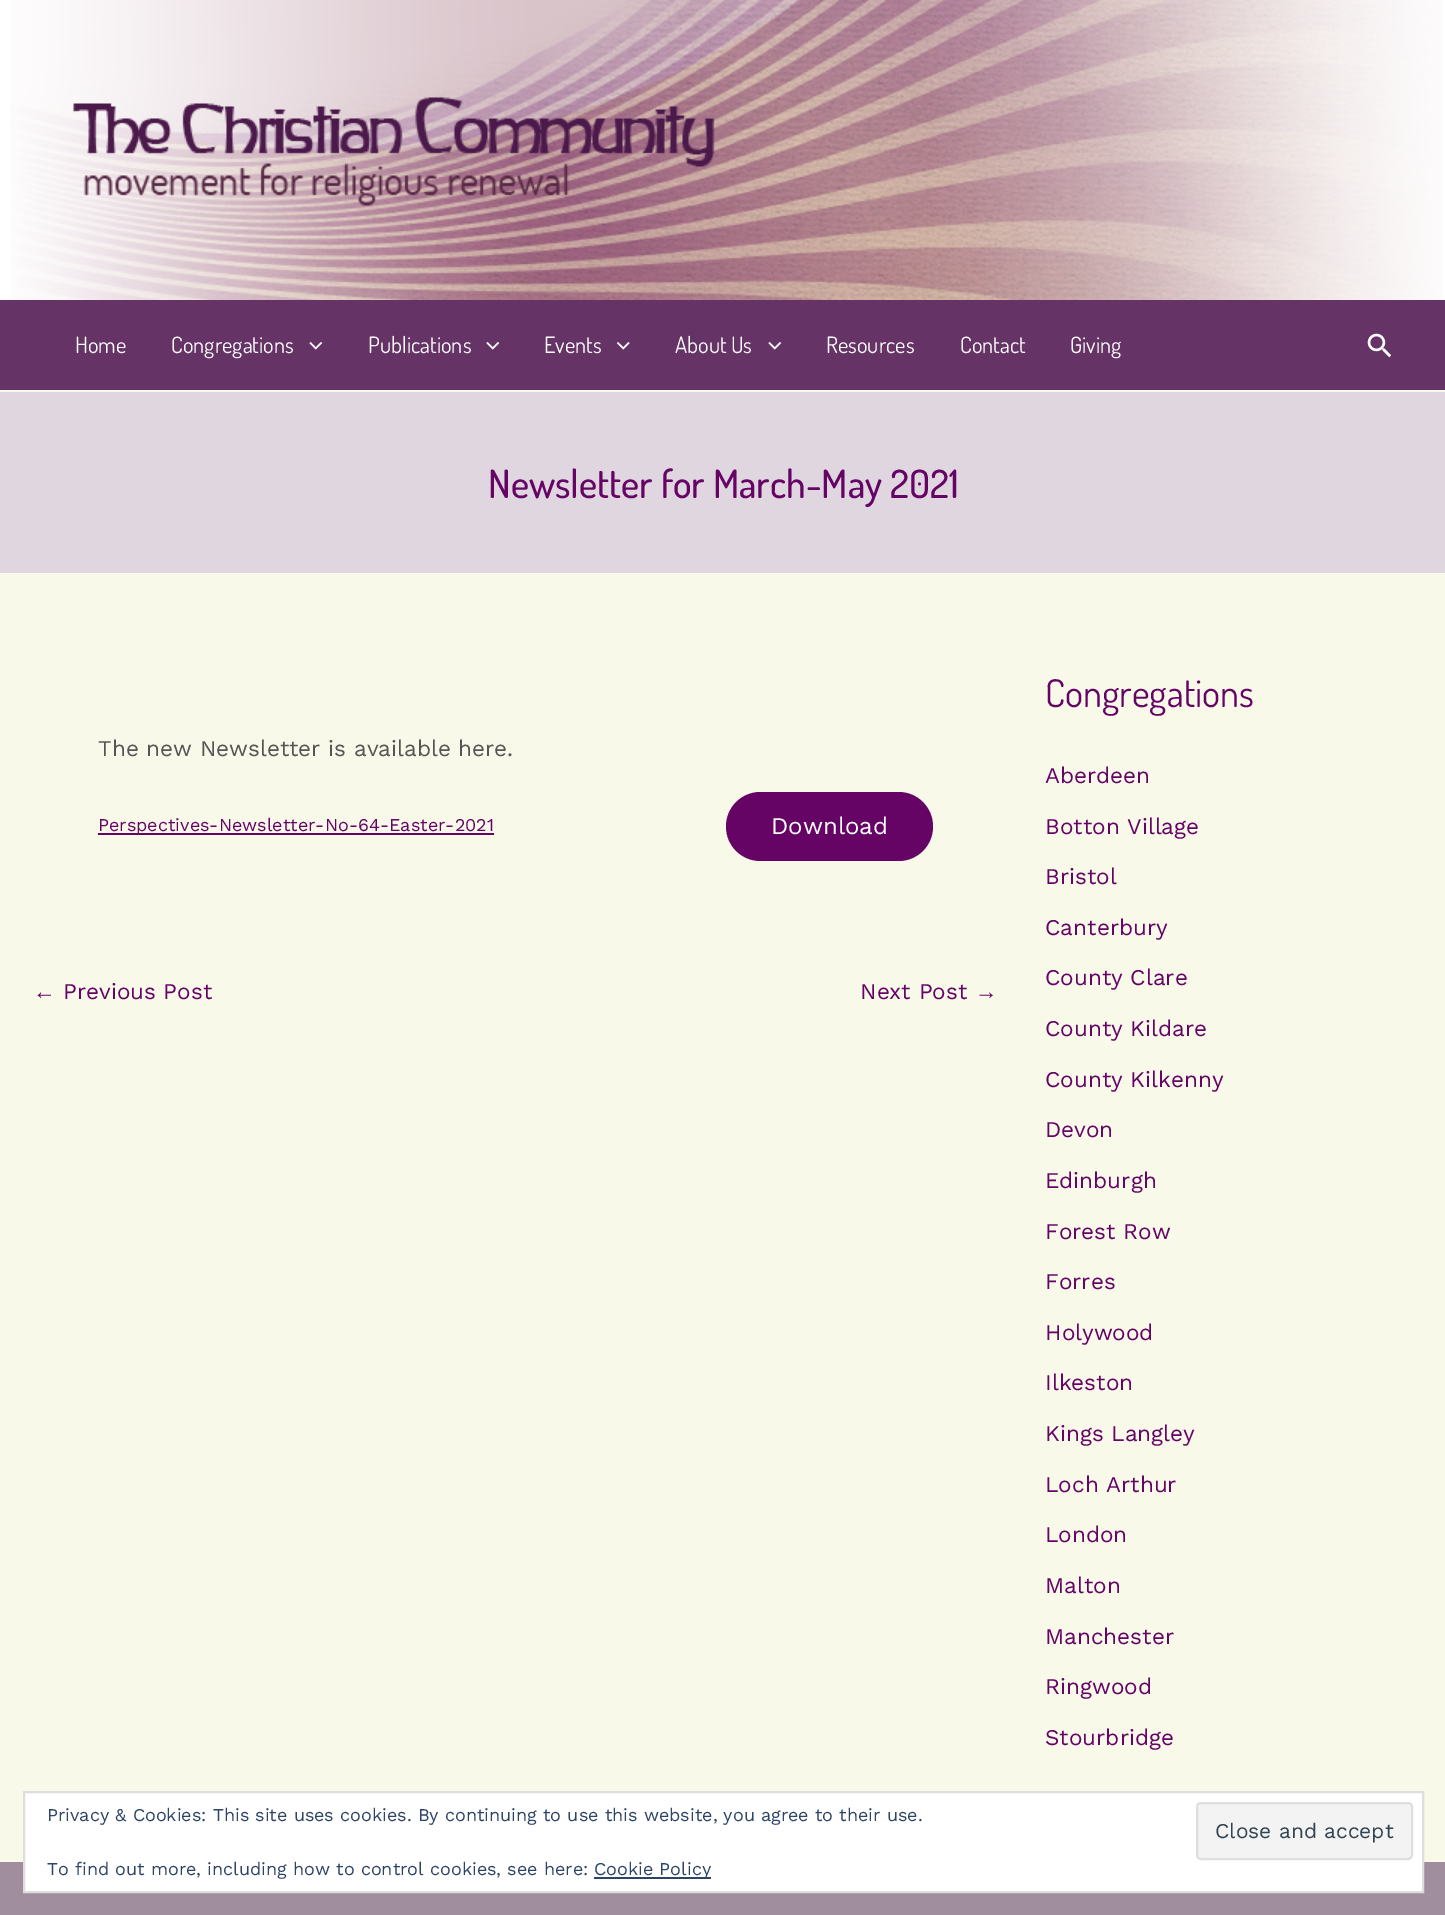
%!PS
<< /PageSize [1445 1915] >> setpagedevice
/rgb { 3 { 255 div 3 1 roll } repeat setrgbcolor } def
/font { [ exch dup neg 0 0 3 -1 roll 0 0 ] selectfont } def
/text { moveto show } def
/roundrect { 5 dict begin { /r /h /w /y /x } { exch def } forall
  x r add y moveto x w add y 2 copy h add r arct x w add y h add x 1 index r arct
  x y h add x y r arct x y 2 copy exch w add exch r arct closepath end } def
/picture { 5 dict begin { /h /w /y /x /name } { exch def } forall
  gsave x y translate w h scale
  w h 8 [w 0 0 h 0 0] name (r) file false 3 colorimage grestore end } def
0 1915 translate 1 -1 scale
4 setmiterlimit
249 249 234 rgb
0 0 1445 1915 rectfill
255 255 255 rgb
0 0 1445 300 rectfill
(img_01.rgb) 10 0 1433 300 picture
(img_02.rgb) 73 97 642 109 picture
102 51 102 rgb
0 300 1445 90 rectfill
(img_03.rgb) 309 342 14 8 picture
(img_03.rgb) 486 342 14 8 picture
(img_04.rgb) 617 342 13 8 picture
(img_03.rgb) 768 342 14 8 picture
(img_05.rgb) 1367 333 24 25 picture
224 214 224 rgb
0 392 1445 181 rectfill
102 4 102 rgb
98 833 396 2 rectfill
726 792 207 69 34.5 roundrect fill
160 141 158 rgb
0 1862 1445 53 rectfill
255 255 255 rgb
24 1792 moveto 1399 0 rlineto 0 100 rlineto -1399 0 rlineto closepath gsave fill grestore
222 222 222 rgb
2 setlinewidth
stroke
243 243 243 rgb
1197 1803 215 56 4 roundrect gsave fill grestore
222 222 222 rgb
stroke
46 68 103 rgb
594 1877 117 2 rectfill
/Dosis-Regular 22.5 font
255 255 255 rgb
(Home) 75 353 text
(Congregations) 171 353 text
(Publications) 368 353 text
(Events) 544 353 text
(About Us) 675 353 text
(Resources) 826 353 text
(Contact) 960 353 text
(Giving) 1070 353 text
/Dosis-Medium 39 font
102 4 102 rgb
(Newsletter for March-May 2021) 488 498 text
/WorkSans-Regular 22.5 font
85 85 85 rgb
(The new Newsletter is available here.) 98 756 text
/WorkSans-Regular 18 font
102 4 102 rgb
(Perspectives-Newsletter-No-64-Easter-2021) 98 831 text
/WorkSans-Regular 24 font
255 255 255 rgb
(Download) 771 834 text
/LiberationSans-Regular 22.5 font
102 4 102 rgb
(←) 33 999 text
/WorkSans-Regular 22.5 font
(Previous Post) 63 999 text
(Next Post) 860 999 text
/LiberationSans-Regular 22.5 font
(→) 975 999 text
/Dosis-Regular 38.25 font
(Congregations) 1045 707 text
/WorkSans-Regular 22.5 font
(Aberdeen) 1045 783 text
(Botton Village) 1045 834 text
(Bristol) 1045 884 text
(Canterbury) 1045 935 text
(County Clare) 1045 985 text
(County Kildare) 1045 1036 text
(County Kilkenny) 1045 1087 text
(Devon) 1045 1137 text
(Edinburgh) 1045 1188 text
(Forest Row) 1045 1239 text
(Forres) 1045 1289 text
(Holywood) 1045 1340 text
(Ilkeston) 1045 1390 text
(Kings Langley) 1045 1441 text
(Loch Arthur) 1045 1492 text
(London) 1045 1542 text
(Malton) 1045 1593 text
(Manchester) 1045 1644 text
(Ringwood) 1045 1694 text
(Stourbridge) 1045 1745 text
/WorkSans-Regular 18 font
46 68 103 rgb
(Privacy & Cookies: This site uses cookies. By continuing to use this website, you agree to their use.) 47 1821 text
/WorkSans-Regular 21 font
46 68 83 rgb
(Close and accept) 1215 1838 text
/WorkSans-Regular 18 font
46 68 103 rgb
(To find out more, including how to control cookies, see here:) 47 1875 text
(Cookie Policy) 594 1875 text
showpage
